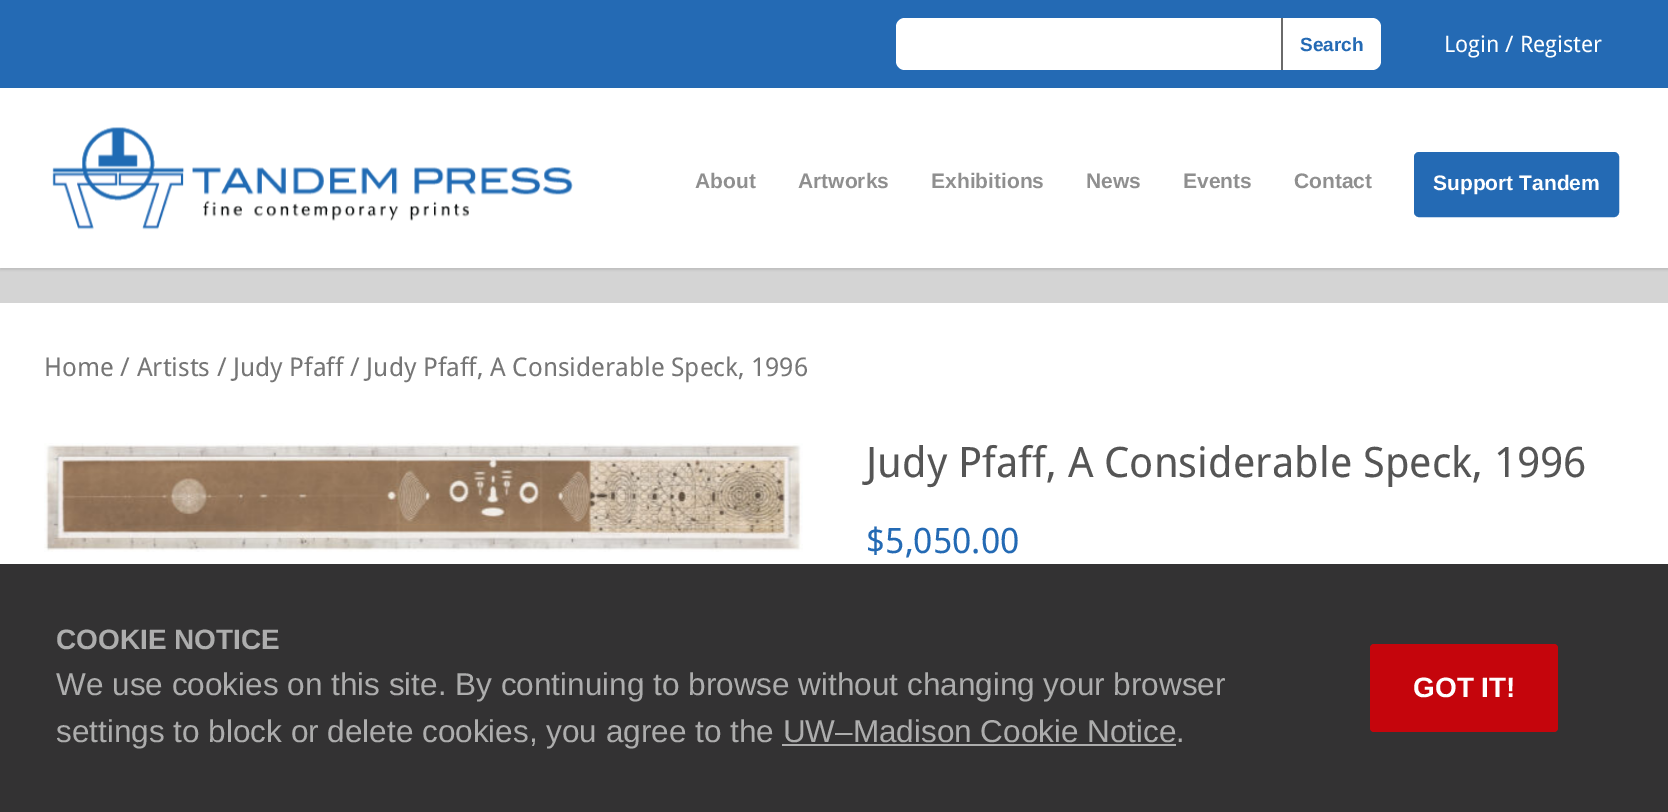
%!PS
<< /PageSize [1668 812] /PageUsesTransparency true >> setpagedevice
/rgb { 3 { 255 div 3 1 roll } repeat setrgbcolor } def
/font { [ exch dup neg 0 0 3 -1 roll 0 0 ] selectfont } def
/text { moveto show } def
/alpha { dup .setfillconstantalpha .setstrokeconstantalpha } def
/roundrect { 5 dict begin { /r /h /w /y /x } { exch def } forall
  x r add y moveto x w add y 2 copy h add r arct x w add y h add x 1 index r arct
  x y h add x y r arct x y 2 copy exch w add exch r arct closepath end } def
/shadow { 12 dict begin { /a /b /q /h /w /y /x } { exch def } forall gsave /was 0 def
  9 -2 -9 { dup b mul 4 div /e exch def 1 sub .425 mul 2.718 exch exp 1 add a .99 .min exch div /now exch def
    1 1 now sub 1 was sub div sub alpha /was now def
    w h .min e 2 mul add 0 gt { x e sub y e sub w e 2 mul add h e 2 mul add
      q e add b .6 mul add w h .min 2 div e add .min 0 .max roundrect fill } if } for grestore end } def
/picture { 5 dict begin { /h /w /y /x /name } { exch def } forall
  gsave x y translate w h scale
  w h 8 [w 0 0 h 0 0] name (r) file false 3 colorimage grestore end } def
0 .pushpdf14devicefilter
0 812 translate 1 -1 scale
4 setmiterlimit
212 212 212 rgb
0 0 1668 812 rectfill
36 106 180 rgb
0 0 1668 88 rectfill
255 255 255 rgb
905 18 moveto 378 0 rlineto 0 52 rlineto -378 0 rlineto -5 0 -9 -4 -9 -9 rcurveto 0 -34 rlineto 0 -5 4 -9 9 -9 rcurveto closepath fill
106 106 106 rgb
1281 18 2 52 rectfill
255 255 255 rgb
1283 18 moveto 89 0 rlineto 5 0 9 4 9 9 rcurveto 0 34 rlineto 0 5 -4 9 -9 9 rcurveto -89 0 rlineto closepath fill
0 0 0 rgb
0 89 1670 181 0 1 0.1 shadow
255 255 255 rgb
0 88 1668 180 rectfill
(img_01.rgb) 52 127 521 103 picture
36 106 180 rgb
1415 153 203 63 4 roundrect gsave fill grestore
2 setlinewidth
stroke
255 255 255 rgb
0 303 1668 261 rectfill
51 50 51 rgb
0 564 1668 248 rectfill
(img_02.rgb) 44 443 759 109 picture
173 173 173 rgb
782 744 394 2 rectfill
197 5 12 rgb
1370 644 188 88 4 roundrect fill
/LiberationSans-Bold 19 font
36 106 180 rgb
(Search) 1300 51 text
/DroidSans-Regular 22.75 font
255 255 255 rgb
(Login / Register) 1444 52 text
/LiberationSans-Bold 21 font
143 143 143 rgb
(About) 695 188 text
(Artworks) 798 188 text
(Exhibitions) 931 188 text
(News) 1086 188 text
(Events) 1183 188 text
(Contact) 1294 188 text
255 255 255 rgb
(Support Tandem) 1433 190 text
/DroidSans-Regular 25.75 font
118 118 118 rgb
(Home / Artists / Judy Pfaff / Judy Pfaff, A Considerable Speck, 1996) 44 376 text
/DroidSans-Regular 42 font
85 85 85 rgb
(Judy Pfaff, A Considerable Speck, 1996) 866 477 text
/DroidSans-Regular 35 font
36 106 180 rgb
($5,050.00) 866 553 text
/LiberationSans-Bold 28 font
173 173 173 rgb
(COOKIE NOTICE) 56 649 text
/LiberationSans-Regular 31.5 font
(We use cookies on this site. By continuing to browse without changing your browser) 56 695 text
(settings to block or delete cookies, you agree to the UW–Madison Cookie Notice.) 56 742 text
/LiberationSans-Bold 28 font
255 255 255 rgb
(GOT IT!) 1413 697 text
.poppdf14devicefilter showpage
